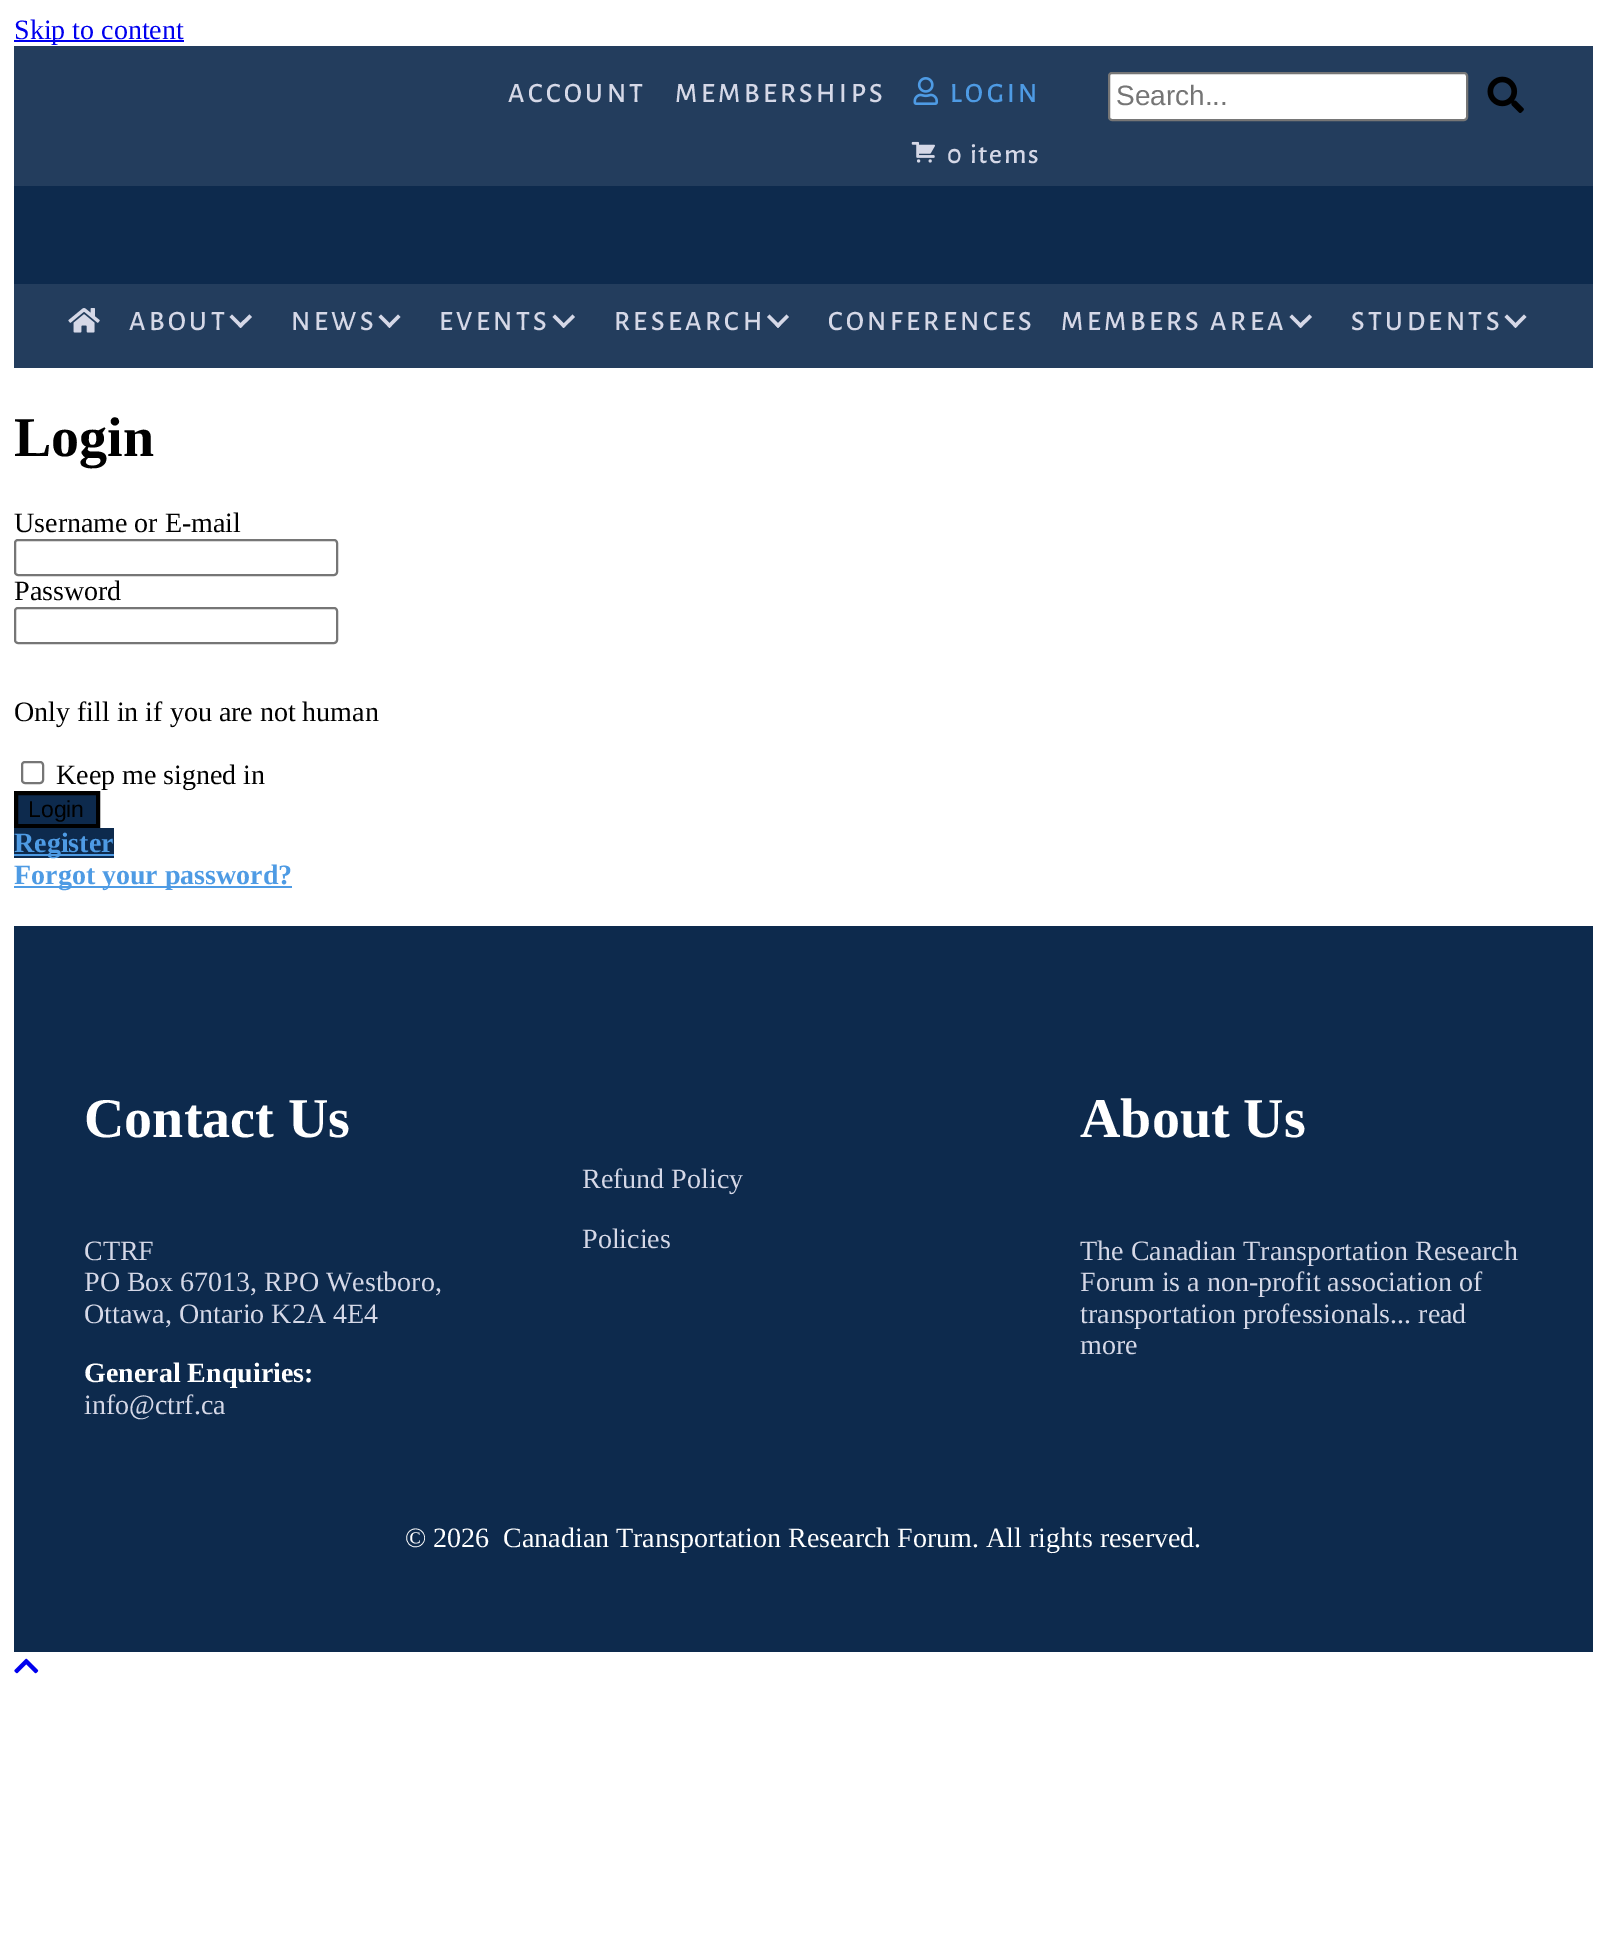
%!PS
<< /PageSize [1606 1952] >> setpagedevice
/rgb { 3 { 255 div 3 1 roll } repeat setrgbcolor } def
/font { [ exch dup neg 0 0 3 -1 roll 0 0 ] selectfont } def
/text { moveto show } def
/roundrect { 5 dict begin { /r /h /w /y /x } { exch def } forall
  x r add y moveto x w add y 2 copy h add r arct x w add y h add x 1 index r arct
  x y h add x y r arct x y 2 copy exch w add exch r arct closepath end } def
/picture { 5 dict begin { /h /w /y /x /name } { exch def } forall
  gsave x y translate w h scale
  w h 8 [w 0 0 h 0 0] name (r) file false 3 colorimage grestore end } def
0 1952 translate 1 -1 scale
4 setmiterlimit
255 255 255 rgb
0 0 1606 1952 rectfill
0 0 238 rgb
14 40 170 2 rectfill
35 61 93 rgb
14 46 1579 140 rectfill
(img_01.rgb) 913 77 25 28 picture
(img_02.rgb) 911 141 24 22 picture
255 255 255 rgb
1109 73 358 47 3 roundrect gsave fill grestore
118 118 118 rgb
2 setlinewidth
stroke
(img_03.rgb) 1487 76 37 37 picture
13 42 77 rgb
14 186 1579 98 rectfill
35 61 93 rgb
14 284 1579 84 rectfill
(img_04.rgb) 68 308 32 25 picture
213 216 231 rgb
249.5 314.5 moveto 2.5 2.5 rlineto -11.5 11 rlineto -2.5 -2.5 rlineto closepath fill
232 314.5 moveto 11 11 rlineto -2.5 2.5 rlineto -11 -11 rlineto closepath fill
398 314.5 moveto 2.5 2.5 rlineto -11 11 rlineto -2.5 -2.5 rlineto closepath fill
381 314.5 moveto 11 11 rlineto -2.5 2.5 rlineto -11 -11 rlineto closepath fill
572.5 314.5 moveto 2.5 2.5 rlineto -11.5 11 rlineto -2 -2.5 rlineto closepath fill
555 314.5 moveto 11 11 rlineto -2.5 2.5 rlineto -11 -11 rlineto closepath fill
786.5 314.5 moveto 2.5 2.5 rlineto -11 11 rlineto -2.5 -2.5 rlineto closepath fill
769.5 314.5 moveto 11 11 rlineto -2.5 2.5 rlineto -11 -11 rlineto closepath fill
1309.5 314.5 moveto 2.5 2.5 rlineto -11.5 11 rlineto -2.5 -2.5 rlineto closepath fill
1292 314.5 moveto 11 11 rlineto -2.5 2.5 rlineto -11 -11 rlineto closepath fill
1524 314.5 moveto 2.5 2.5 rlineto -11 11 rlineto -2.5 -2.5 rlineto closepath fill
1507 314.5 moveto 11 11 rlineto -2.5 2.5 rlineto -11 -11 rlineto closepath fill
118 118 118 rgb
15 540 322 35 3 roundrect stroke
15 608 322 35 3 roundrect stroke
22 762 21 21 3 roundrect stroke
13 42 77 rgb
16 793 moveto 82 0 rlineto 0 33 rlineto -82 0 rlineto closepath gsave fill grestore
0 0 0 rgb
4 setlinewidth
stroke
13 42 77 rgb
14 828 100 30 rectfill
78 155 228 rgb
14 854 100 2 rectfill
14 886 278 2 rectfill
13 42 77 rgb
14 926 1579 726 rectfill
(img_05.rgb) 14 1658 25 16 picture
/LiberationSerif-Regular 28 font
0 0 238 rgb
(Skip to content) 14 39 text
/AlegreyaSans-Medium 28 font
213 216 231 rgb
508 102 moveto 3.5 0 (ACCOUNT) ashow
675 102 moveto 3.5 0 (MEMBERSHIPS) ashow
78 155 228 rgb
950 102 moveto 3.5 0 (LOGIN) ashow
213 216 231 rgb
947 163 moveto 1.75 0 (0 items) ashow
/LiberationSans-Regular 28 font
117 117 117 rgb
(Search...) 1116 105 text
/AlegreyaSans-Medium 28 font
213 216 231 rgb
129 330 moveto 3.5 0 (ABOUT) ashow
291 330 moveto 3.5 0 (NEWS) ashow
439 330 moveto 3.5 0 (EVENTS) ashow
614 330 moveto 3.5 0 (RESEARCH) ashow
828 330 moveto 3.5 0 (CONFERENCES) ashow
1061 330 moveto 3.5 0 (MEMBERS AREA) ashow
1351 330 moveto 3.5 0 (STUDENTS) ashow
/LiberationSerif-Bold 56 font
0 0 0 rgb
(Login) 14 456 text
/LiberationSerif-Regular 28 font
(Username or E-mail) 14 532 text
(Password) 14 600 text
(Only fill in if you are not human) 14 721 text
(Keep me signed in) 56 784 text
/LiberationSans-Regular 23 font
(Login) 28 817 text
/LiberationSerif-Bold 28 font
78 155 228 rgb
(Register) 14 852 text
(Forgot your password?) 14 884 text
/LiberationSerif-Bold 56 font
255 255 255 rgb
(Contact Us) 84 1137 text
/LiberationSerif-Regular 28 font
213 216 231 rgb
(CTRF) 84 1260 text
(PO Box 67013, RPO Westboro,) 84 1291 text
(Ottawa, Ontario K2A 4E4) 84 1323 text
/LiberationSerif-Bold 28 font
255 255 255 rgb
(General Enquiries:) 84 1382 text
/LiberationSerif-Regular 28 font
213 216 231 rgb
(info@ctrf.ca) 84 1414 text
(Refund Policy) 582 1188 text
(Policies) 582 1248 text
/LiberationSerif-Bold 56 font
255 255 255 rgb
(About Us) 1080 1137 text
/LiberationSerif-Regular 28 font
213 216 231 rgb
(The Canadian Transportation Research) 1080 1260 text
(Forum is a non-profit association of) 1080 1291 text
(transportation professionals... read) 1080 1323 text
(more) 1080 1354 text
255 255 255 rgb
(© 2026  Canadian Transportation Research Forum. All rights reserved.) 405 1547 text
showpage
